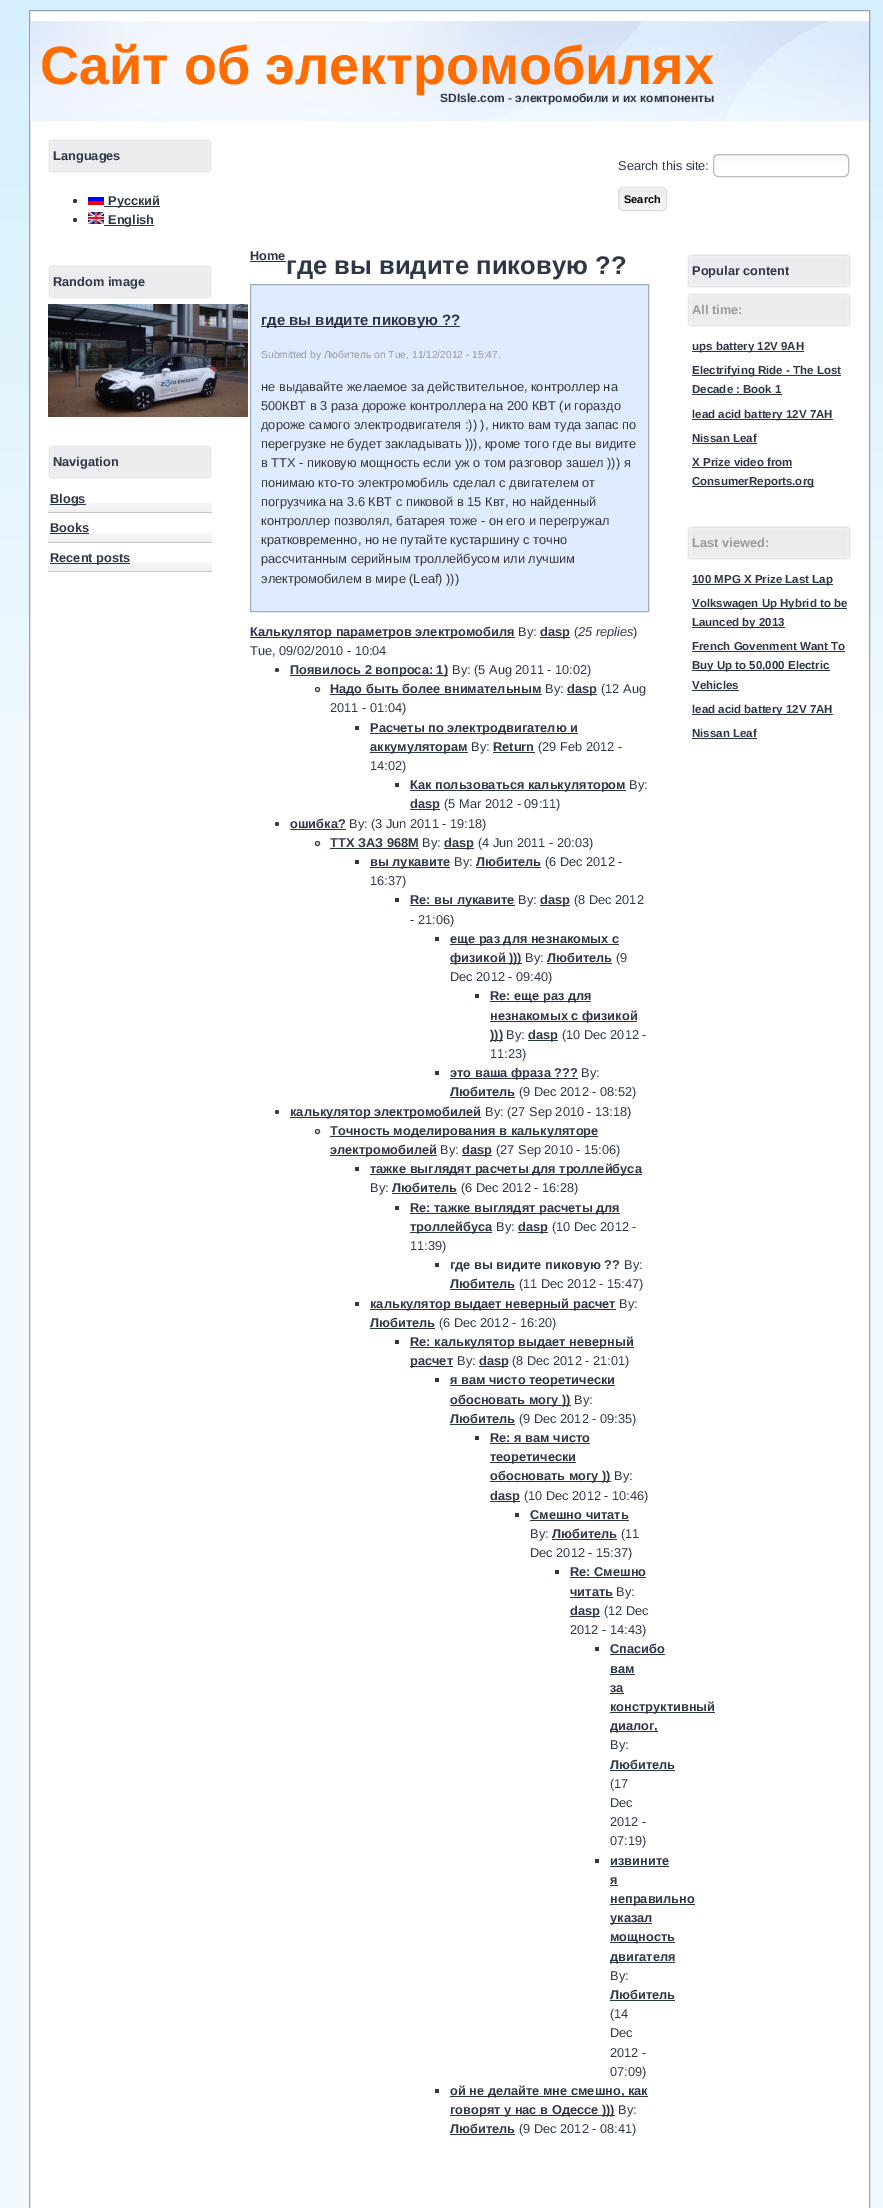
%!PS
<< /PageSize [883 2208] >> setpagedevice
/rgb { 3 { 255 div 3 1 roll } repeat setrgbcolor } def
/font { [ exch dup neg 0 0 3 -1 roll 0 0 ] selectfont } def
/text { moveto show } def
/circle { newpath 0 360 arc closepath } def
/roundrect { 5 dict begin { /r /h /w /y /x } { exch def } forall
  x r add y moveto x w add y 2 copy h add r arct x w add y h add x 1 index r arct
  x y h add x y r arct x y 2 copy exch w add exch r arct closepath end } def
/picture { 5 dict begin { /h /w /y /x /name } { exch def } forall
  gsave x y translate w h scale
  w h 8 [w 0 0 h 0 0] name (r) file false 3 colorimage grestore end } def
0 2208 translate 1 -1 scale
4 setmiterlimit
242 249 254 rgb
0 0 883 2208 rectfill
(img_01.rgb) 0 0 883 713 picture
255 255 255 rgb
29.5 10.5 moveto 840 0 rlineto 0 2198 rlineto -840 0 rlineto closepath gsave fill grestore
148 164 172 rgb
stroke
(img_02.rgb) 30 21 839 100 picture
248 248 248 rgb
713 155 136 6 rectfill
187 187 187 rgb
713.5 154.5 135 22 4.5 roundrect stroke
(img_03.rgb) 618 189 49 22 picture
221 221 221 rgb
618.5 187.5 48 23 4.5 roundrect stroke
(img_04.rgb) 48 139 164 34 picture
47 55 70 rgb
75 201 2 circle fill
(img_05.rgb) 88 197 16 8 picture
45 54 68 rgb
104 206 56 1 rectfill
47 55 70 rgb
75 220 2 circle fill
(img_06.rgb) 88 212 16 12 picture
45 54 68 rgb
104 225 50 1 rectfill
(img_04.rgb) 48 265 164 34 picture
(img_07.rgb) 48 304 200 113 picture
(img_04.rgb) 48 445 164 34 picture
(img_08.rgb) 48 503 164 10 picture
50 504 36 1 rectfill
(img_08.rgb) 48 533 164 10 picture
50 533 39 1 rectfill
(img_08.rgb) 48 562 164 10 picture
50 563 80 1 rectfill
250 261 36 1 rectfill
223 235 255 rgb
250.5 284.5 moveto 398 0 rlineto 0 327 rlineto -398 0 rlineto closepath gsave fill grestore
161 172 192 rgb
stroke
45 54 68 rgb
261 326 199 1 rectfill
250 637 265 1 rectfill
540 637 30 1 rectfill
47 55 70 rgb
277 670 2 circle fill
45 54 68 rgb
290 675 158 1 rectfill
47 55 70 rgb
317.5 689.5 2 circle stroke
45 54 68 rgb
330 694 212 1 rectfill
567 694 30 1 rectfill
47 55 70 rgb
355 726 4 4 rectfill
45 54 68 rgb
370 733 208 1 rectfill
370 752 98 1 rectfill
493 752 42 1 rectfill
47 55 70 rgb
395 783 4 4 rectfill
45 54 68 rgb
410 790 216 1 rectfill
410 809 30 1 rectfill
47 55 70 rgb
277 824 2 circle fill
45 54 68 rgb
290 829 56 1 rectfill
47 55 70 rgb
317.5 843.5 2 circle stroke
45 54 68 rgb
330 848 89 1 rectfill
444 848 30 1 rectfill
47 55 70 rgb
355 860 4 4 rectfill
45 54 68 rgb
370 867 80 1 rectfill
476 867 65 1 rectfill
47 55 70 rgb
395 898 4 4 rectfill
45 54 68 rgb
410 905 105 1 rectfill
540 905 30 1 rectfill
47 55 70 rgb
435 937 4 4 rectfill
45 54 68 rgb
450 944 169 1 rectfill
450 963 72 1 rectfill
547 963 65 1 rectfill
47 55 70 rgb
475 994 4 4 rectfill
45 54 68 rgb
490 1001 101 1 rectfill
490 1021 147 1 rectfill
490 1040 13 1 rectfill
528 1040 30 1 rectfill
47 55 70 rgb
435 1071 4 4 rectfill
45 54 68 rgb
450 1078 128 1 rectfill
450 1097 65 1 rectfill
47 55 70 rgb
277 1112 2 circle fill
45 54 68 rgb
290 1117 191 1 rectfill
47 55 70 rgb
317.5 1131.5 2 circle stroke
45 54 68 rgb
330 1136 268 1 rectfill
330 1155 107 1 rectfill
462 1155 30 1 rectfill
47 55 70 rgb
355 1167 4 4 rectfill
45 54 68 rgb
370 1174 272 1 rectfill
392 1193 65 1 rectfill
47 55 70 rgb
395 1206 4 4 rectfill
45 54 68 rgb
410 1213 210 1 rectfill
410 1232 82 1 rectfill
518 1232 30 1 rectfill
47 55 70 rgb
435 1263 4 4 rectfill
45 54 68 rgb
450 1289 65 1 rectfill
47 55 70 rgb
355 1302 4 4 rectfill
45 54 68 rgb
370 1309 246 1 rectfill
370 1328 65 1 rectfill
47 55 70 rgb
395 1340 4 4 rectfill
45 54 68 rgb
410 1347 224 1 rectfill
410 1366 43 1 rectfill
479 1366 29 1 rectfill
47 55 70 rgb
435 1378 4 4 rectfill
45 54 68 rgb
450 1385 165 1 rectfill
450 1405 121 1 rectfill
450 1424 65 1 rectfill
47 55 70 rgb
475 1436 4 4 rectfill
45 54 68 rgb
490 1443 100 1 rectfill
490 1462 86 1 rectfill
490 1481 121 1 rectfill
490 1501 30 1 rectfill
47 55 70 rgb
515 1513 4 4 rectfill
45 54 68 rgb
530 1520 99 1 rectfill
552 1539 65 1 rectfill
47 55 70 rgb
555 1570 4 4 rectfill
45 54 68 rgb
570 1577 76 1 rectfill
570 1597 43 1 rectfill
570 1616 30 1 rectfill
47 55 70 rgb
595 1647 4 4 rectfill
45 54 68 rgb
610 1654 55 1 rectfill
610 1674 25 1 rectfill
610 1693 14 1 rectfill
610 1712 105 1 rectfill
610 1731 48 1 rectfill
610 1770 65 1 rectfill
47 55 70 rgb
595 1859 4 4 rectfill
45 54 68 rgb
610 1866 59 1 rectfill
610 1885 8 1 rectfill
610 1904 85 1 rectfill
610 1923 42 1 rectfill
610 1942 65 1 rectfill
610 1962 65 1 rectfill
610 2000 65 1 rectfill
47 55 70 rgb
435 2089 4 4 rectfill
45 54 68 rgb
450 2096 198 1 rectfill
450 2115 165 1 rectfill
450 2134 65 1 rectfill
(img_04.rgb) 687 254 164 34 picture
(img_04.rgb) 687 293 164 34 picture
692 351 112 1 rectfill
692 375 149 1 rectfill
692 394 90 1 rectfill
692 419 141 1 rectfill
692 443 65 1 rectfill
692 467 100 1 rectfill
692 486 122 1 rectfill
(img_04.rgb) 687 526 164 34 picture
692 584 141 1 rectfill
692 608 155 1 rectfill
692 627 93 1 rectfill
692 651 153 1 rectfill
692 670 138 1 rectfill
692 690 47 1 rectfill
692 714 141 1 rectfill
692 738 65 1 rectfill
/LiberationSans-Bold 54 font
255 108 0 rgb
(Сайт об электромобилях) 40 84 text
/LiberationSans-Bold 12 font
47 55 70 rgb
(SDIsle.com - электромобили и их компоненты) 440 102 text
/LiberationSans-Regular 12.8 font
(Search this site:) 618 170 text
/LiberationSans-Bold 11 font
0 0 0 rgb
(Search) 624 203 text
/LiberationSans-Bold 12.8 font
47 55 70 rgb
(Languages) 53 160 text
(Русский) 108 205 text
(English) 108 224 text
(Random image) 53 286 text
(Navigation) 53 466 text
(Blogs) 50 503 text
(Books) 50 532 text
(Recent posts) 50 562 text
(Home) 250 260 text
/LiberationSans-Bold 25.6 font
(где вы видите пиковую ??) 286 274 text
/LiberationSans-Bold 15 font
(где вы видите пиковую ??) 261 325 text
/LiberationSans-Regular 10.25 font
153 153 153 rgb
(Submitted by Любитель on Tue, 11/12/2012 - 15:47.) 261 358 text
/LiberationSans-Regular 12.8 font
54 54 54 rgb
(не выдавайте желаемое за действительное, контроллер на) 261 391 text
(500КВТ в 3 раза дороже контроллера на 200 КВТ \(и гораздо) 261 410 text
(дороже самого электродвигателя :\)\) \), никто вам туда запас по) 261 429 text
(перегрузке не будет закладывать \)\)\), кроме того где вы видите) 261 448 text
(в ТТХ - пиковую мощность если уж о том разговор зашел \)\)\) я) 261 467 text
(понимаю кто-то электромобиль сделал с двигателем от) 261 487 text
(погрузчика на 3.6 КВТ с пиковой в 15 Квт, но найденный) 261 506 text
(контроллер позволял, батарея тоже - он его и перегружал) 261 525 text
(кратковременно, но не путайте кустаршину с точно) 261 544 text
(рассчитанным серийным троллейбусом или лучшим) 261 563 text
(электромобилем в мире \(Leaf\) \)\)\)) 261 583 text
/LiberationSans-Bold 12.8 font
47 55 70 rgb
(Калькулятор параметров электромобиля) 250 636 text
/LiberationSans-Regular 12.8 font
(By:) 518 636 text
/LiberationSans-Bold 12.8 font
(dasp) 540 636 text
/LiberationSans-Regular 12.8 font
(\() 574 636 text
/LiberationSans-Italic 12.8 font
(25 replies) 578 636 text
/LiberationSans-Regular 12.8 font
(\)) 633 636 text
(Tue, 09/02/2010 - 10:04) 250 655 text
/LiberationSans-Bold 12.8 font
(Появилось 2 вопроса: 1\)) 290 674 text
/LiberationSans-Regular 12.8 font
(By: \(5 Aug 2011 - 10:02\)) 452 674 text
/LiberationSans-Bold 12.8 font
(Надо быть более внимательным) 330 693 text
/LiberationSans-Regular 12.8 font
(By:) 545 693 text
/LiberationSans-Bold 12.8 font
(dasp) 567 693 text
/LiberationSans-Regular 12.8 font
(\(12 Aug) 601 693 text
(2011 - 01:04\)) 330 712 text
/LiberationSans-Bold 12.8 font
(Расчеты по электродвигателю и) 370 732 text
(аккумуляторам) 370 751 text
/LiberationSans-Regular 12.8 font
(By:) 471 751 text
/LiberationSans-Bold 12.8 font
(Return) 493 751 text
/LiberationSans-Regular 12.8 font
(\(29 Feb 2012 -) 538 751 text
(14:02\)) 370 770 text
/LiberationSans-Bold 12.8 font
(Как пользоваться калькулятором) 410 789 text
/LiberationSans-Regular 12.8 font
(By:) 629 789 text
/LiberationSans-Bold 12.8 font
(dasp) 410 808 text
/LiberationSans-Regular 12.8 font
(\(5 Mar 2012 - 09:11\)) 444 808 text
/LiberationSans-Bold 12.8 font
(ошибка?) 290 828 text
/LiberationSans-Regular 12.8 font
(By: \(3 Jun 2011 - 19:18\)) 349 828 text
/LiberationSans-Bold 12.8 font
(ТТХ ЗАЗ 968М) 330 847 text
/LiberationSans-Regular 12.8 font
(By:) 422 847 text
/LiberationSans-Bold 12.8 font
(dasp) 444 847 text
/LiberationSans-Regular 12.8 font
(\(4 Jun 2011 - 20:03\)) 478 847 text
/LiberationSans-Bold 12.8 font
(вы лукавите) 370 866 text
/LiberationSans-Regular 12.8 font
(By:) 454 866 text
/LiberationSans-Bold 12.8 font
(Любитель) 476 866 text
/LiberationSans-Regular 12.8 font
(\(6 Dec 2012 -) 545 866 text
(16:37\)) 370 885 text
/LiberationSans-Bold 12.8 font
(Re: вы лукавите) 410 904 text
/LiberationSans-Regular 12.8 font
(By:) 518 904 text
/LiberationSans-Bold 12.8 font
(dasp) 540 904 text
/LiberationSans-Regular 12.8 font
(\(8 Dec 2012) 574 904 text
(- 21:06\)) 410 924 text
/LiberationSans-Bold 12.8 font
(еще раз для незнакомых с) 450 943 text
(физикой \)\)\)) 450 962 text
/LiberationSans-Regular 12.8 font
(By:) 525 962 text
/LiberationSans-Bold 12.8 font
(Любитель) 547 962 text
/LiberationSans-Regular 12.8 font
(\(9) 616 962 text
(Dec 2012 - 09:40\)) 450 981 text
/LiberationSans-Bold 12.8 font
(Re: еще раз для) 490 1000 text
(незнакомых с физикой) 490 1020 text
(\)\)\)) 490 1039 text
/LiberationSans-Regular 12.8 font
(By:) 506 1039 text
/LiberationSans-Bold 12.8 font
(dasp) 528 1039 text
/LiberationSans-Regular 12.8 font
(\(10 Dec 2012 -) 562 1039 text
(11:23\)) 490 1058 text
/LiberationSans-Bold 12.8 font
(это ваша фраза ???) 450 1077 text
/LiberationSans-Regular 12.8 font
(By:) 581 1077 text
/LiberationSans-Bold 12.8 font
(Любитель) 450 1096 text
/LiberationSans-Regular 12.8 font
(\(9 Dec 2012 - 08:52\)) 519 1096 text
/LiberationSans-Bold 12.8 font
(калькулятор электромобилей) 290 1116 text
/LiberationSans-Regular 12.8 font
(By: \(27 Sep 2010 - 13:18\)) 485 1116 text
/LiberationSans-Bold 12.8 font
(Точность моделирования в калькуляторе) 330 1135 text
(электромобилей) 330 1154 text
/LiberationSans-Regular 12.8 font
(By:) 440 1154 text
/LiberationSans-Bold 12.8 font
(dasp) 462 1154 text
/LiberationSans-Regular 12.8 font
(\(27 Sep 2010 - 15:06\)) 496 1154 text
/LiberationSans-Bold 12.8 font
(тажке выглядят расчеты для троллейбуса) 370 1173 text
/LiberationSans-Regular 12.8 font
(By:) 370 1192 text
/LiberationSans-Bold 12.8 font
(Любитель) 392 1192 text
/LiberationSans-Regular 12.8 font
(\(6 Dec 2012 - 16:28\)) 461 1192 text
/LiberationSans-Bold 12.8 font
(Re: тажке выглядят расчеты для) 410 1212 text
(троллейбуса) 410 1231 text
/LiberationSans-Regular 12.8 font
(By:) 496 1231 text
/LiberationSans-Bold 12.8 font
(dasp) 518 1231 text
/LiberationSans-Regular 12.8 font
(\(10 Dec 2012 -) 552 1231 text
(11:39\)) 410 1250 text
/LiberationSans-Bold 12.8 font
(где вы видите пиковую ??) 450 1269 text
/LiberationSans-Regular 12.8 font
(By:) 624 1269 text
/LiberationSans-Bold 12.8 font
(Любитель) 450 1288 text
/LiberationSans-Regular 12.8 font
(\(11 Dec 2012 - 15:47\)) 519 1288 text
/LiberationSans-Bold 12.8 font
(калькулятор выдает неверный расчет) 370 1308 text
/LiberationSans-Regular 12.8 font
(By:) 619 1308 text
/LiberationSans-Bold 12.8 font
(Любитель) 370 1327 text
/LiberationSans-Regular 12.8 font
(\(6 Dec 2012 - 16:20\)) 439 1327 text
/LiberationSans-Bold 12.8 font
(Re: калькулятор выдает неверный) 410 1346 text
(расчет) 410 1365 text
/LiberationSans-Regular 12.8 font
(By:) 457 1365 text
/LiberationSans-Bold 12.8 font
(dasp) 479 1365 text
/LiberationSans-Regular 12.8 font
(\(8 Dec 2012 - 21:01\)) 512 1365 text
/LiberationSans-Bold 12.8 font
(я вам чисто теоретически) 450 1384 text
(обосновать могу \)\)) 450 1404 text
/LiberationSans-Regular 12.8 font
(By:) 574 1404 text
/LiberationSans-Bold 12.8 font
(Любитель) 450 1423 text
/LiberationSans-Regular 12.8 font
(\(9 Dec 2012 - 09:35\)) 519 1423 text
/LiberationSans-Bold 12.8 font
(Re: я вам чисто) 490 1442 text
(теоретически) 490 1461 text
(обосновать могу \)\)) 490 1480 text
/LiberationSans-Regular 12.8 font
(By:) 614 1480 text
/LiberationSans-Bold 12.8 font
(dasp) 490 1500 text
/LiberationSans-Regular 12.8 font
(\(10 Dec 2012 - 10:46\)) 524 1500 text
/LiberationSans-Bold 12.8 font
(Смешно читать) 530 1519 text
/LiberationSans-Regular 12.8 font
(By:) 530 1538 text
/LiberationSans-Bold 12.8 font
(Любитель) 552 1538 text
/LiberationSans-Regular 12.8 font
(\(11) 621 1538 text
(Dec 2012 - 15:37\)) 530 1557 text
/LiberationSans-Bold 12.8 font
(Re: Смешно) 570 1576 text
(читать) 570 1596 text
/LiberationSans-Regular 12.8 font
(By:) 616 1596 text
/LiberationSans-Bold 12.8 font
(dasp) 570 1615 text
/LiberationSans-Regular 12.8 font
(\(12 Dec) 604 1615 text
(2012 - 14:43\)) 570 1634 text
/LiberationSans-Bold 12.8 font
(Спасибо) 610 1653 text
(вам) 610 1673 text
(за) 610 1692 text
(конструктивный) 610 1711 text
(диалог,) 610 1730 text
/LiberationSans-Regular 12.8 font
(By:) 610 1749 text
/LiberationSans-Bold 12.8 font
(Любитель) 610 1769 text
/LiberationSans-Regular 12.8 font
(\(17) 610 1788 text
(Dec) 610 1807 text
(2012 -) 610 1826 text
(07:19\)) 610 1845 text
/LiberationSans-Bold 12.8 font
(извините) 610 1865 text
(я) 610 1884 text
(неправильно) 610 1903 text
(указал) 610 1922 text
(мощность) 610 1941 text
(двигателя) 610 1961 text
/LiberationSans-Regular 12.8 font
(By:) 610 1980 text
/LiberationSans-Bold 12.8 font
(Любитель) 610 1999 text
/LiberationSans-Regular 12.8 font
(\(14) 610 2018 text
(Dec) 610 2037 text
(2012 -) 610 2057 text
(07:09\)) 610 2076 text
/LiberationSans-Bold 12.8 font
(ой не делайте мне смешно, как) 450 2095 text
(говорят у нас в Одессе \)\)\)) 450 2114 text
/LiberationSans-Regular 12.8 font
(By:) 618 2114 text
/LiberationSans-Bold 12.8 font
(Любитель) 450 2133 text
/LiberationSans-Regular 12.8 font
(\(9 Dec 2012 - 08:41\)) 519 2133 text
/LiberationSans-Bold 12.8 font
(Popular content) 692 275 text
153 153 153 rgb
(All time:) 692 314 text
/LiberationSans-Bold 11.5 font
47 55 70 rgb
(ups battery 12V 9AH) 692 350 text
(Electrifying Ride - The Lost) 692 374 text
(Decade : Book 1) 692 393 text
(lead acid battery 12V 7AH) 692 418 text
(Nissan Leaf) 692 442 text
(X Prize video from) 692 466 text
(ConsumerReports.org) 692 485 text
/LiberationSans-Bold 12.8 font
153 153 153 rgb
(Last viewed:) 692 547 text
/LiberationSans-Bold 11.5 font
47 55 70 rgb
(100 MPG X Prize Last Lap) 692 583 text
(Volkswagen Up Hybrid to be) 692 607 text
(Launced by 2013) 692 626 text
(French Govenment Want To) 692 650 text
(Buy Up to 50,000 Electric) 692 669 text
(Vehicles) 692 689 text
(lead acid battery 12V 7AH) 692 713 text
(Nissan Leaf) 692 737 text
showpage
